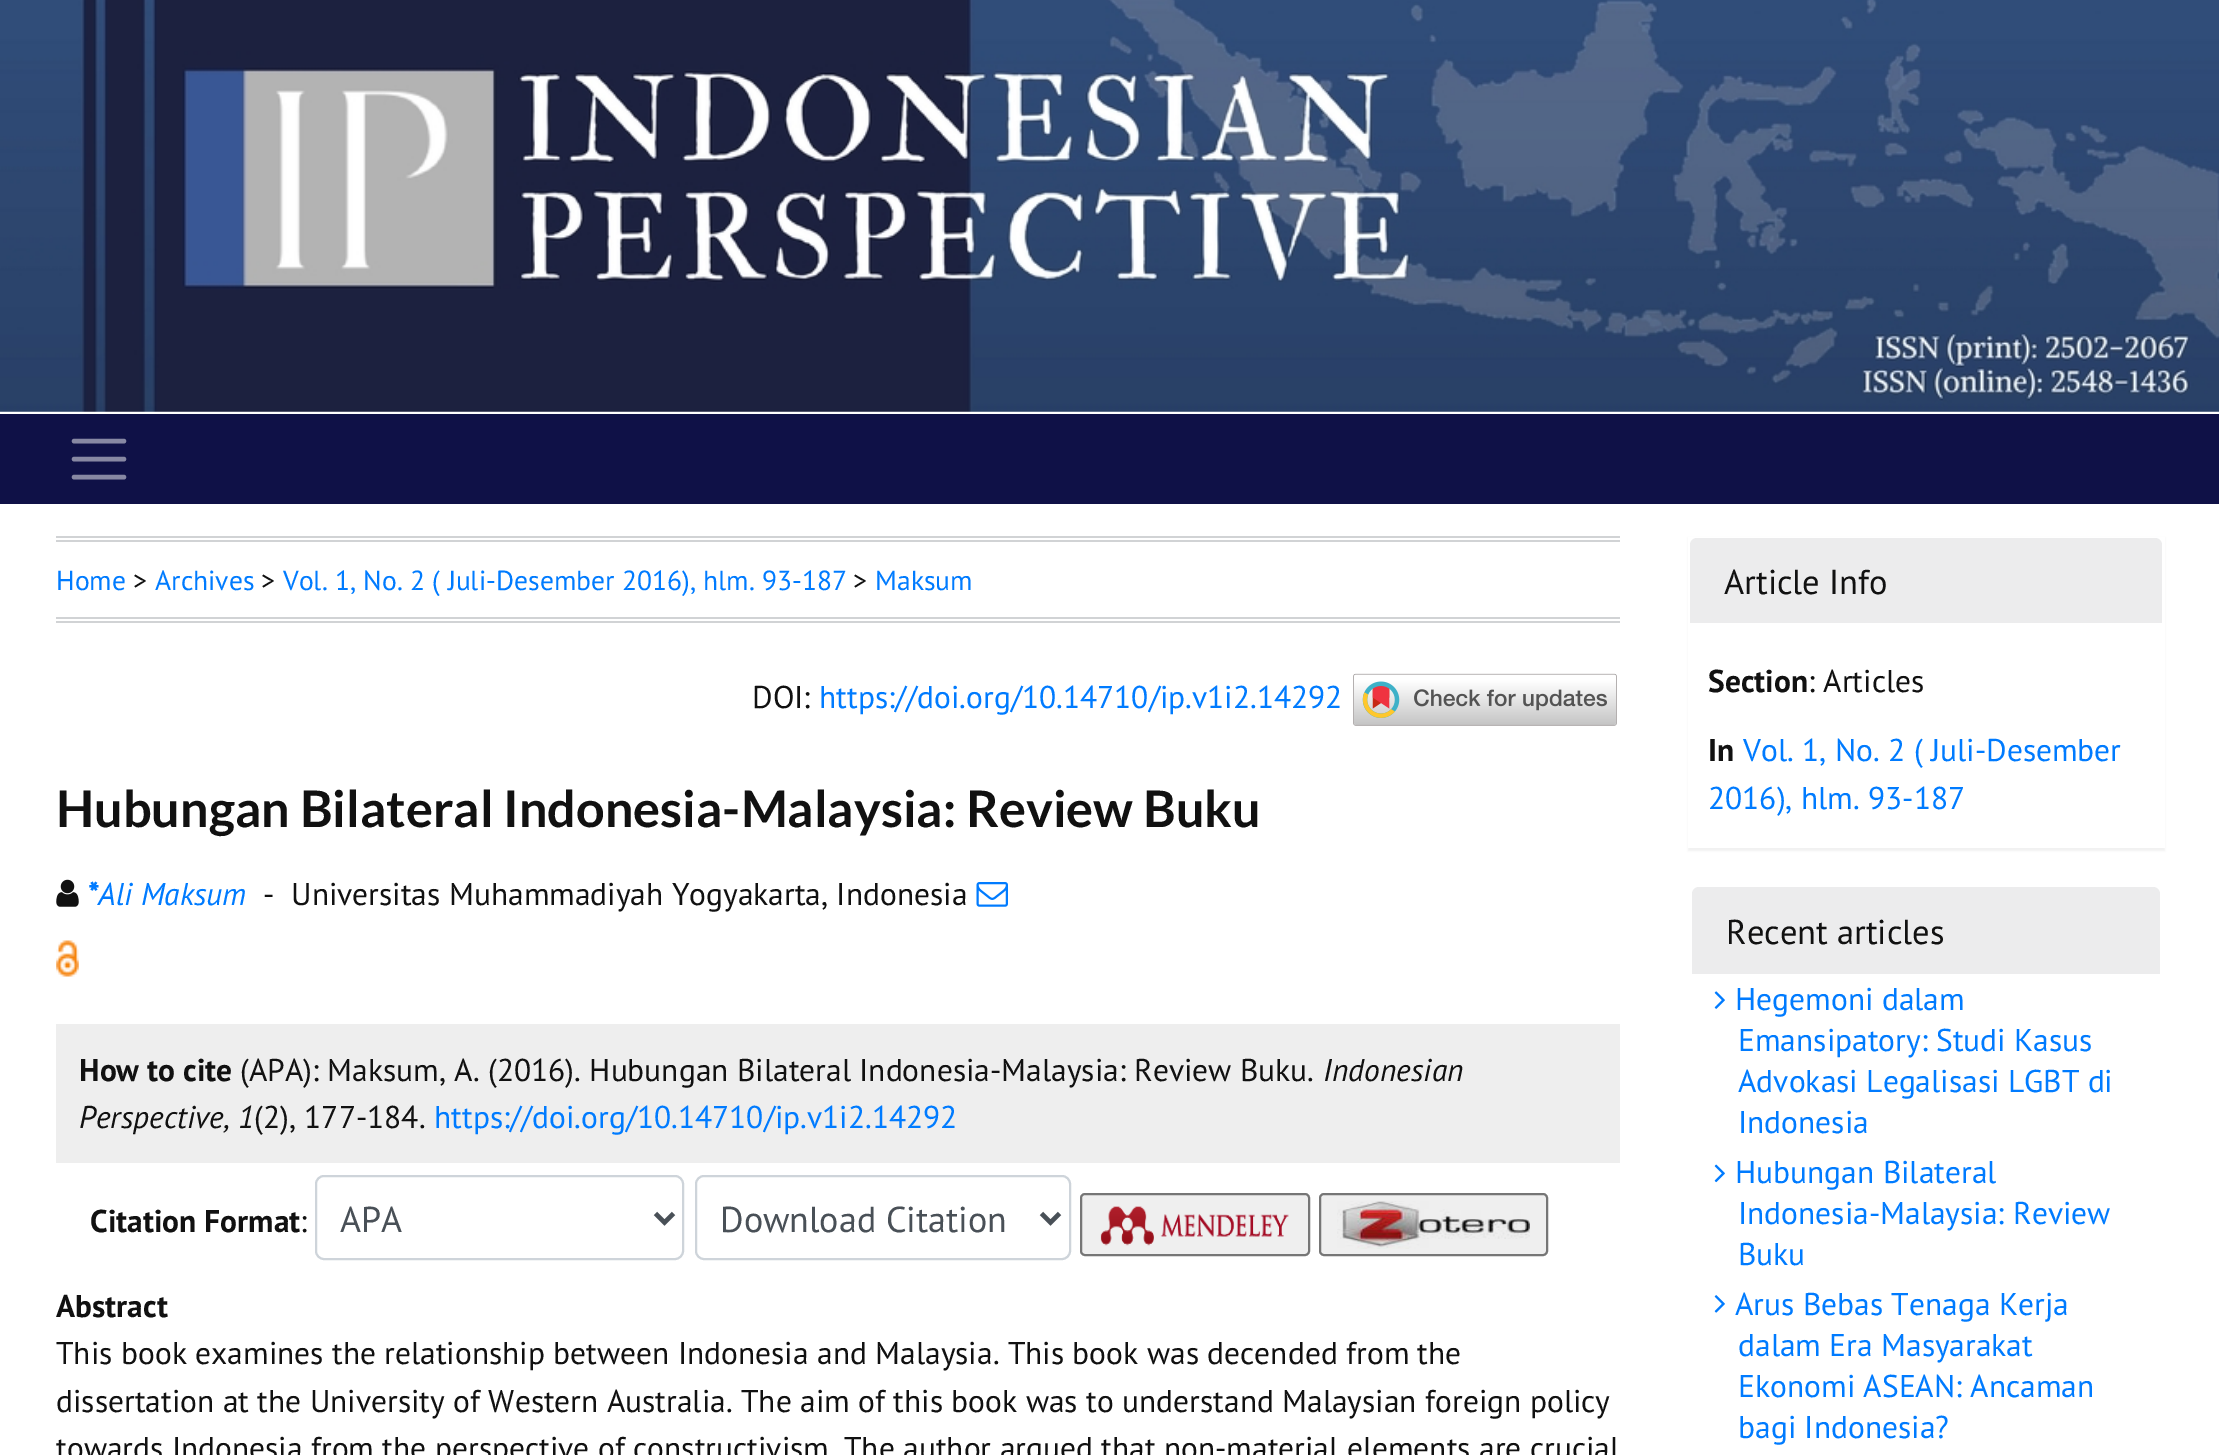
%!PS
<< /PageSize [2219 1455] /PageUsesTransparency true >> setpagedevice
/rgb { 3 { 255 div 3 1 roll } repeat setrgbcolor } def
/font { [ exch dup neg 0 0 3 -1 roll 0 0 ] selectfont } def
/text { moveto show } def
/alpha { dup .setfillconstantalpha .setstrokeconstantalpha } def
/roundrect { 5 dict begin { /r /h /w /y /x } { exch def } forall
  x r add y moveto x w add y 2 copy h add r arct x w add y h add x 1 index r arct
  x y h add x y r arct x y 2 copy exch w add exch r arct closepath end } def
/shadow { 12 dict begin { /a /b /q /h /w /y /x } { exch def } forall gsave /was 0 def
  9 -2 -9 { dup b mul 4 div /e exch def 1 sub .425 mul 2.718 exch exp 1 add a .99 .min exch div /now exch def
    1 1 now sub 1 was sub div sub alpha /was now def
    w h .min e 2 mul add 0 gt { x e sub y e sub w e 2 mul add h e 2 mul add
      q e add b .6 mul add w h .min 2 div e add .min 0 .max roundrect fill } if } for grestore end } def
/picture { 5 dict begin { /h /w /y /x /name } { exch def } forall
  gsave x y translate w h scale
  w h 8 [w 0 0 h 0 0] name (r) file false 3 colorimage grestore end } def
0 .pushpdf14devicefilter
0 1455 translate 1 -1 scale
4 setmiterlimit
255 255 255 rgb
0 0 2219 1455 rectfill
(img_01.rgb) 0 0 2219 412 picture
15 17 71 rgb
0 414 2219 90 rectfill
135 136 163 rgb
4.5 setlinewidth
1 setlinecap
74 441 moveto 50 0 rlineto 74 459 moveto 50 0 rlineto 74 477 moveto 50 0 rlineto stroke
209 211 213 rgb
56 536 1564 2 rectfill
56 540 1564 2 rectfill
56 617 1564 2 rectfill
56 621 1564 2 rectfill
(img_02.rgb) 1353 673 264 53 picture
(img_03.rgb) 56 879 23 28 picture
(img_04.rgb) 976 882 32 25 picture
(img_05.rgb) 56 940 23 37 picture
238 238 238 rgb
56 1024 1564 139 rectfill
206 212 218 rgb
2 setlinewidth
0 setlinecap
316 1176 367 83 8 roundrect stroke
73 80 87 rgb
4.5 setlinewidth
655.5 1213.5 moveto 9 9 rlineto 9 -9 rlineto stroke
206 212 218 rgb
2 setlinewidth
696 1176 374 83 8 roundrect stroke
73 80 87 rgb
4.5 setlinewidth
1041.5 1213.5 moveto 9 9 rlineto 9 -9 rlineto stroke
239 239 239 rgb
1081 1194 228 61 4 roundrect gsave fill grestore
118 118 118 rgb
2 setlinewidth
stroke
(img_06.rgb) 1100 1206 189 40 picture
239 239 239 rgb
1320 1194 227 61 4 roundrect gsave fill grestore
118 118 118 rgb
stroke
(img_07.rgb) 1337 1201 193 48 picture
0 0 0 rgb
1688 538 477 313 0 1 0.05 shadow
255 255 255 rgb
1688 537 477 311 rectfill
236 236 237 rgb
1697 538 moveto 458 0 rlineto 4 0 7 3 7 7 rcurveto 0 78 rlineto -472 0 rlineto 0 -78 rlineto 0 -4 3 -7 7 -7 rcurveto closepath fill
1699 887 moveto 454 0 rlineto 4 0 7 3 7 7 rcurveto 0 80 rlineto -468 0 rlineto 0 -80 rlineto 0 -4 3 -7 7 -7 rcurveto closepath fill
(img_08.rgb) 1714 991 11 18 picture
(img_09.rgb) 1714 1164 11 19 picture
(img_10.rgb) 1714 1295 11 18 picture
/PTSans-Regular 27.6 font
0 123 255 rgb
(Home) 56 590 text
17 17 17 rgb
(>) 133 590 text
0 123 255 rgb
(Archives) 155 590 text
17 17 17 rgb
(>) 261 590 text
0 123 255 rgb
(Vol. 1, No. 2 \( Juli-Desember 2016\), hlm. 93-187) 283 590 text
17 17 17 rgb
(>) 853 590 text
0 123 255 rgb
(Maksum) 875 590 text
/PTSans-Regular 31.5 font
17 17 17 rgb
(DOI:) 752 708 text
0 123 255 rgb
(https://doi.org/10.14710/ip.v1i2.14292) 819 708 text
/Lato-Bold 50.4 font
17 17 17 rgb
(Hubungan Bilateral Indonesia-Malaysia: Review Buku) 56 827 text
/PTSans-BoldItalic 31.5 font
0 123 255 rgb
(*) 87 905 text
/PTSans-Italic 31.5 font
(Ali Maksum) 98 905 text
/PTSans-Regular 31.5 font
17 17 17 rgb
(-) 263 905 text
(Universitas Muhammadiyah Yogyakarta, Indonesia) 291 905 text
/PTSans-Bold 31.5 font
(How to cite) 79 1081 text
/PTSans-Regular 31.5 font
(\(APA\): Maksum, A. \(2016\). Hubungan Bilateral Indonesia-Malaysia: Review Buku.) 240 1081 text
/PTSans-Italic 31.5 font
(Indonesian) 1323 1081 text
(Perspective, 1) 79 1128 text
/PTSans-Regular 31.5 font
(\(2\), 177-184.) 254 1128 text
0 123 255 rgb
(https://doi.org/10.14710/ip.v1i2.14292) 434 1128 text
/PTSans-Bold 31.5 font
17 17 17 rgb
(Citation Format) 90 1232 text
/PTSans-Regular 31.5 font
(:) 300 1232 text
/PTSans-Regular 36 font
73 80 87 rgb
(APA) 340 1232 text
(Download Citation) 720 1232 text
/PTSans-Bold 31.5 font
17 17 17 rgb
(Abstract) 56 1317 text
/PTSans-Regular 31.5 font
(This book examines the relationship between Indonesia and Malaysia. This book was decended from the) 56 1364 text
(dissertation at the University of Western Australia. The aim of this book was to understand Malaysian foreign policy) 56 1412 text
(towards Indonesia from the perspective of constructivism. The author argued that non-material elements are crucial) 56 1459 text
/PTSans-Regular 34.5 font
(Article Info) 1724 594 text
/PTSans-Bold 31.5 font
(Section) 1708 692 text
/PTSans-Regular 31.5 font
(: Articles) 1808 692 text
/PTSans-Bold 31.5 font
(In) 1708 761 text
/PTSans-Regular 31.5 font
0 123 255 rgb
(Vol. 1, No. 2 \( Juli-Desember) 1743 761 text
(2016\), hlm. 93-187) 1708 809 text
/PTSans-Regular 34.5 font
17 17 17 rgb
(Recent articles) 1726 944 text
/PTSans-Regular 31.5 font
0 123 255 rgb
(Hegemoni dalam) 1735 1010 text
(Emansipatory: Studi Kasus) 1738 1051 text
(Advokasi Legalisasi LGBT di) 1738 1092 text
(Indonesia) 1738 1133 text
(Hubungan Bilateral) 1735 1183 text
(Indonesia-Malaysia: Review) 1738 1224 text
(Buku) 1738 1265 text
(Arus Bebas Tenaga Kerja) 1735 1315 text
(dalam Era Masyarakat) 1738 1356 text
(Ekonomi ASEAN: Ancaman) 1738 1397 text
(bagi Indonesia?) 1738 1438 text
.poppdf14devicefilter showpage
